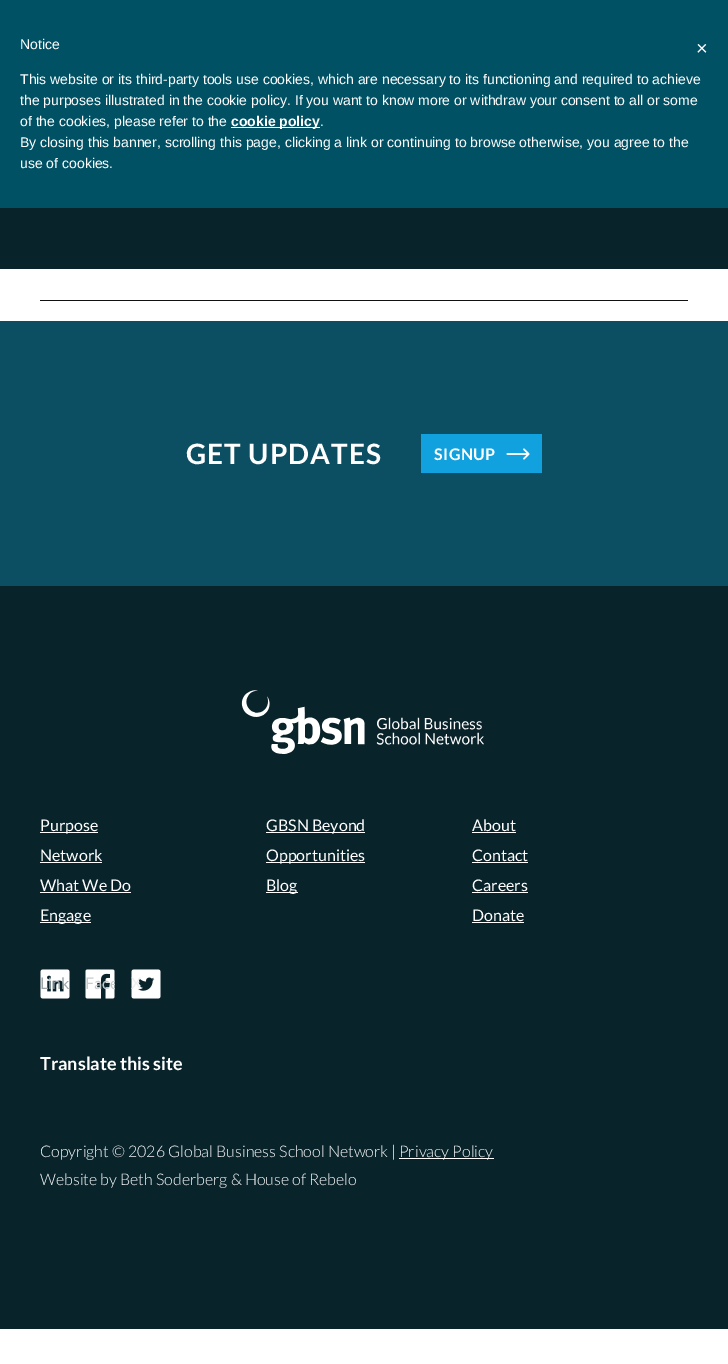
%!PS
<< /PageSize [728 1364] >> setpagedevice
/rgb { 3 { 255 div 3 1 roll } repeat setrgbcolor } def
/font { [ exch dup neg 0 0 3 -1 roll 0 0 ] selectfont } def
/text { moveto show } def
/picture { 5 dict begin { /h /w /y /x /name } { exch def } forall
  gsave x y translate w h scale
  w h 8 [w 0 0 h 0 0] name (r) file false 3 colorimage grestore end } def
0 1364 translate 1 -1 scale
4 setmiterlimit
255 255 255 rgb
0 0 728 1364 rectfill
1 81 101 rgb
0 0 728 208 rectfill
255 255 255 rgb
231 127 89 1 rectfill
9 35 43 rgb
0 208 728 61 rectfill
17 17 17 rgb
40 300 648 1 rectfill
9 35 43 rgb
0 586 728 743 rectfill
13 79 98 rgb
0 321 728 265 rectfill
16 161 222 rgb
421 434 121 39 rectfill
(img_01.rgb) 506 448 24 12 picture
(img_02.rgb) 241 690 243 64 picture
255 255 255 rgb
40 832 58 1 rectfill
266 832 99 1 rectfill
40 862 62 1 rectfill
266 862 99 1 rectfill
40 892 91 1 rectfill
266 892 32 1 rectfill
40 922 51 1 rectfill
472 832 44 1 rectfill
472 862 56 1 rectfill
472 892 56 1 rectfill
472 922 52 1 rectfill
(img_03.rgb) 40 969 30 30 picture
(img_04.rgb) 85 969 30 30 picture
(img_05.rgb) 131 969 30 30 picture
399 1158 95 1 rectfill
/LiberationSans-Regular 14 font
(Notice) 20 49 text
(This website or its third-party tools use cookies, which are necessary to its functioning and required to achieve) 20 84 text
(the purposes illustrated in the cookie policy. If you want to know more or withdraw your consent to all or some) 20 105 text
(of the cookies, please refer to the) 20 126 text
/LiberationSans-Bold 14 font
(cookie policy) 231 126 text
/LiberationSans-Regular 14 font
(.) 320 126 text
(By closing this banner, scrolling this page, clicking a link or continuing to browse otherwise, you agree to the) 20 147 text
(use of cookies.) 20 168 text
/LiberationSans-Regular 20 font
(×) 696 55 text
/Lato-Bold 28 font
186 464 moveto 1 0 (GET UPDATES) ashow
/Lato-Bold 16 font
434 460 moveto 0.5 0 (SIGNUP) ashow
/Lato-Regular 16 font
(Purpose) 40 831 text
(GBSN Beyond) 266 831 text
(Network) 40 861 text
(Opportunities) 266 861 text
(What We Do) 40 891 text
(Blog) 266 891 text
(Engage) 40 921 text
(About) 472 831 text
(Contact) 472 861 text
(Careers) 472 891 text
(Donate) 472 921 text
156 166 170 rgb
(Link) 40 989 text
gsave
85 969 30 30 rectclip
198 204 206 rgb
(Face) 85 989 text
grestore
237 239 239 rgb
(X) 131 989 text
/Lato-Bold 18 font
255 255 255 rgb
(Translate this site) 40 1070 text
/Lato-Light 16 font
(Copyright © 2026 Global Business School Network |) 40 1157 text
(Privacy Policy) 399 1157 text
(Website by Beth Soderberg & House of Rebelo) 40 1185 text
showpage
